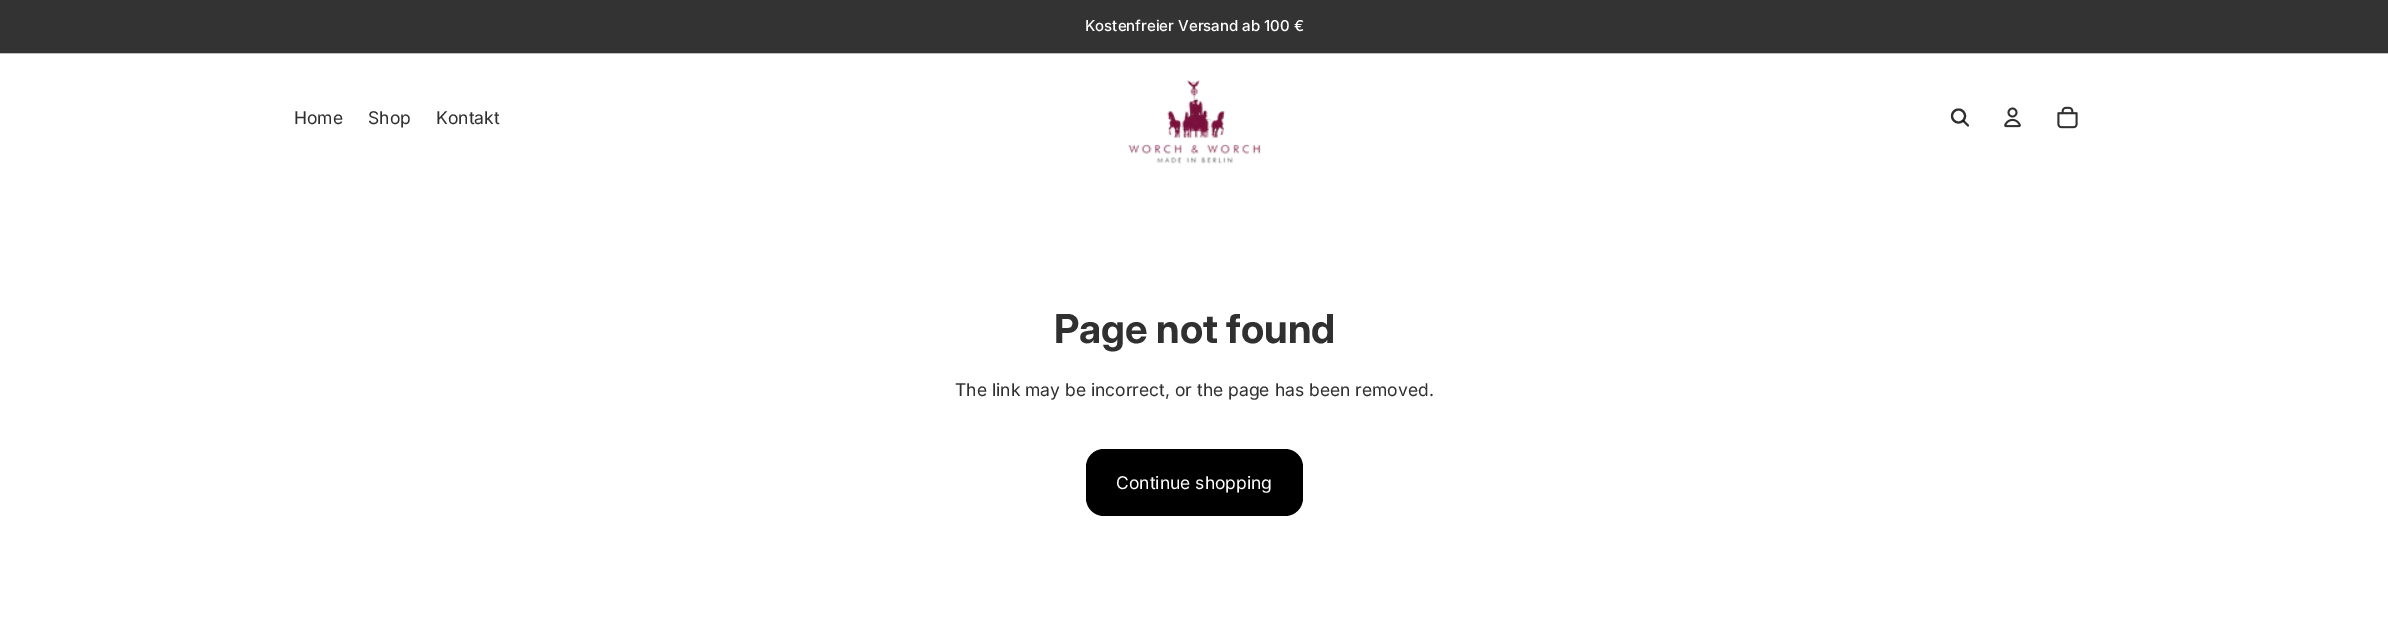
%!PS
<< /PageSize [2388 620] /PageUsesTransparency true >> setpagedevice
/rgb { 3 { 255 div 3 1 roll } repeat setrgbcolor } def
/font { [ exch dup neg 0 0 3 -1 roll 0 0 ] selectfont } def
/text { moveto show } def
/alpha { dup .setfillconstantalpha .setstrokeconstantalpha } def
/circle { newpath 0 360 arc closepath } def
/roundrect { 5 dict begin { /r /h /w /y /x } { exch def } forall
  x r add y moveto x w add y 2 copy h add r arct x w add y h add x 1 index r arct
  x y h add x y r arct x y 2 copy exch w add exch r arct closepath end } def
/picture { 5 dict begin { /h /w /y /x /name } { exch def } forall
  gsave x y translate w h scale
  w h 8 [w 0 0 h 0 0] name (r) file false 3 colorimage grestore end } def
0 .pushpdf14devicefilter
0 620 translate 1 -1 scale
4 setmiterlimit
255 255 255 rgb
0 0 2388 620 rectfill
51 51 51 rgb
0 0 2388 53 rectfill
192 192 192 rgb
0 53 2388 1 rectfill
(img_01.rgb) 1128 80 133 84 picture
48 48 48 rgb
2.1 setlinewidth
1958.5 116 6.5 circle stroke
0.81 alpha
0 0 0 rgb
1 setlinecap
1 setlinejoin
1963.5 121 moveto 4.5 4.5 rlineto stroke
1 alpha
(img_02.rgb) 2004 107 17 21 picture
(img_03.rgb) 2057 106 21 23 picture
1086 449 217 67 18 roundrect fill
/Inter-Medium 15 font
255 255 255 rgb
(Kostenfreier Versand ab 100 €) 1085 31 text
/Inter-Regular 17.5 font
48 48 48 rgb
(Home) 294 124 text
(Shop) 368 124 text
(Kontakt) 436 124 text
/Inter-Bold 40 font
(Page not found) 1054 343 text
/Inter-Regular 17.5 font
(The link may be incorrect, or the page has been removed.) 955 396 text
255 255 255 rgb
(Continue shopping) 1116 489 text
.poppdf14devicefilter showpage
